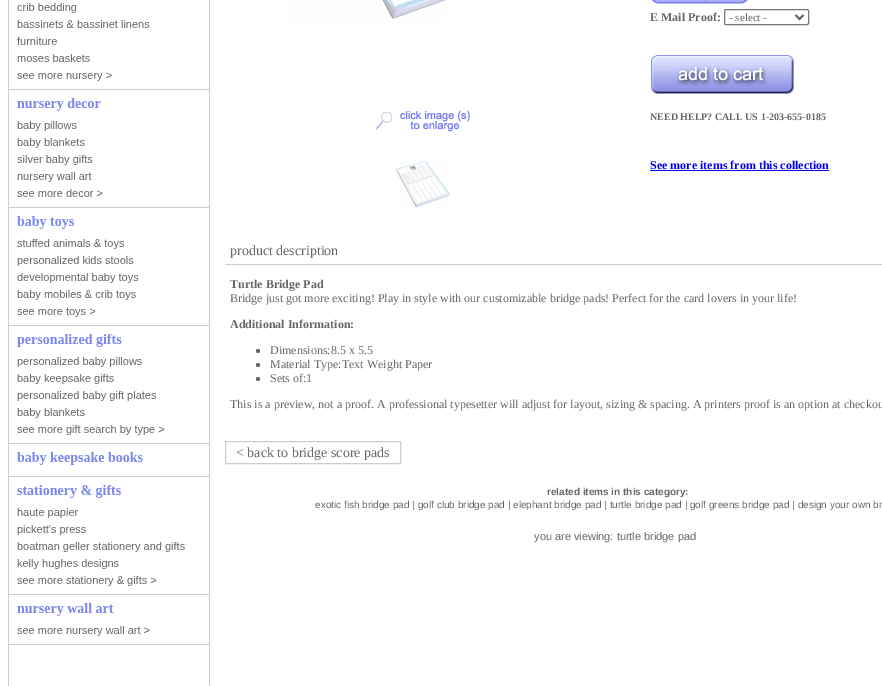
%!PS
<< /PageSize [882 686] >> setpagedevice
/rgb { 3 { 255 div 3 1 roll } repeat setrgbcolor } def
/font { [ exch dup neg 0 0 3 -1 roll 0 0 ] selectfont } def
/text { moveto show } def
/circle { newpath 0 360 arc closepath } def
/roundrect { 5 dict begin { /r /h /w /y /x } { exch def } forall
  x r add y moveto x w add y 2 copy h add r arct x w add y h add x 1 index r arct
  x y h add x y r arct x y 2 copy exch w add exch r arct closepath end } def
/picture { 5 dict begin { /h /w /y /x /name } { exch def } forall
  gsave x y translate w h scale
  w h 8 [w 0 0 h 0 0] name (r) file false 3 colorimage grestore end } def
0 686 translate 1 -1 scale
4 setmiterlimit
255 255 255 rgb
0 0 882 686 rectfill
204 204 204 rgb
209 0 1 686 rectfill
8 0 1 686 rectfill
(img_01.rgb) 9 3 200 642 picture
(img_02.rgb) 290 0 157 23 picture
(img_03.rgb) 376 110 94 22 picture
(img_04.rgb) 395 160 55 48 picture
(img_05.rgb) 652 0 96 4 picture
118 118 118 rgb
724.5 9.5 84 15 1.5 roundrect stroke
102 102 102 rgb
2 setlinewidth
795.5 15 moveto 4 4 rlineto 4 -4 rlineto stroke
(img_06.rgb) 651 55 143 39 picture
0 0 238 rgb
650 170 179 1 rectfill
204 204 204 rgb
225 264 657 1 rectfill
102 102 102 rgb
258 351 2 circle fill
258 365 2 circle fill
258 379 2 circle fill
204 204 204 rgb
1 setlinewidth
225.5 441.5 175 22 rectstroke
/LiberationSerif-Bold 12 font
102 102 102 rgb
(E Mail Proof:) 650 21 text
/LiberationSerif-Regular 11 font
(- select -) 729 21 text
/LiberationSerif-Bold 10 font
(NEED HELP? CALL US 1-203-655-0185) 650 120 text
/LiberationSerif-Bold 12 font
0 0 238 rgb
(See more items from this collection) 650 169 text
/LiberationSerif-Regular 14 font
102 102 102 rgb
(product description) 230 255 text
/LiberationSerif-Bold 12 font
(Turtle Bridge Pad) 230 288 text
/LiberationSerif-Regular 12 font
(Bridge just got more exciting! Play in style with our customizable bridge pads! Perfect for the card lovers in your life!) 230 302 text
/LiberationSerif-Bold 12 font
(Additional Information:) 230 328 text
/LiberationSerif-Regular 12 font
(Dimensions:8.5 x 5.5) 270 354 text
(Material Type:Text Weight Paper) 270 368 text
(Sets of:1) 270 382 text
(This is a preview, not a proof. A professional typesetter will adjust for layout, sizing & spacing. A printers proof is an option at checkou) 230 408 text
/LiberationSerif-Regular 14 font
(< back to bridge score pads) 236 457 text
/LiberationSans-Bold 10 font
(related items in this category:) 547 495 text
/LiberationSans-Regular 10 font
(exotic fish bridge pad | golf club bridge pad | elephant bridge pad | turtle bridge pad | golf greens bridge pad | design your own br) 315 508 text
/LiberationSans-Regular 11 font
(you are viewing: turtle bridge pad) 534 540 text
showpage
